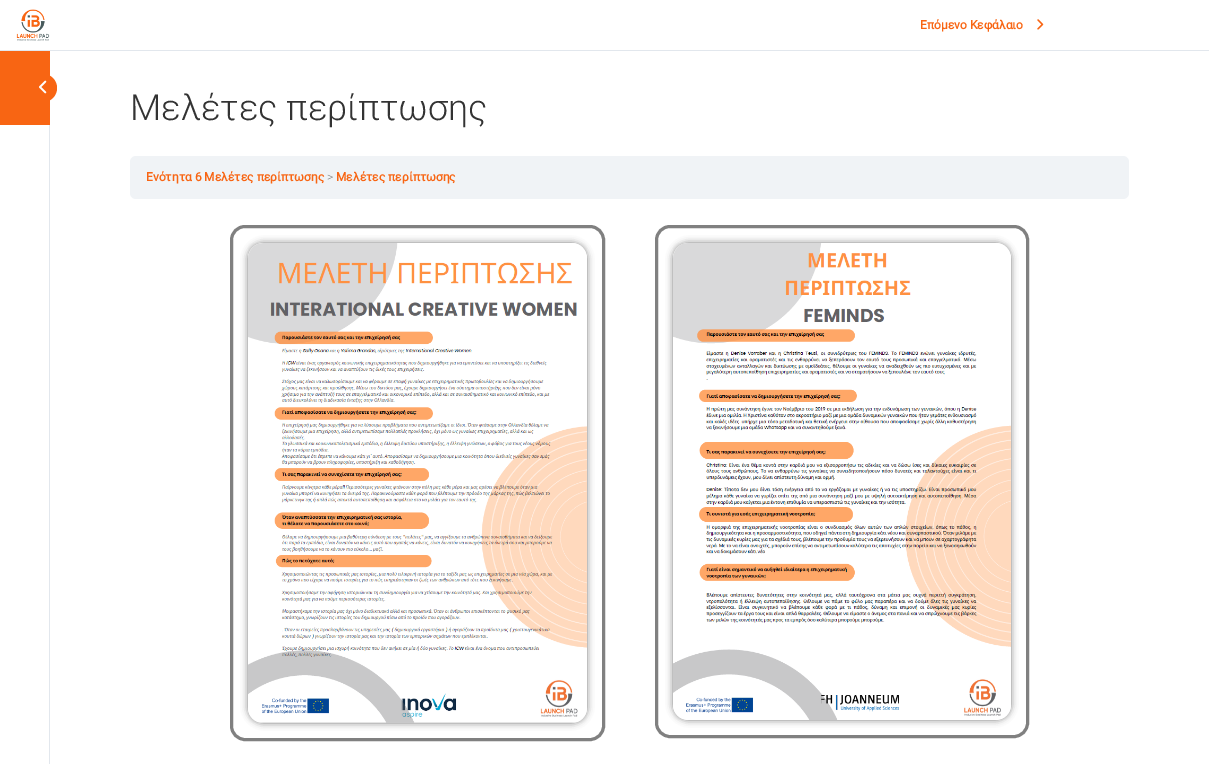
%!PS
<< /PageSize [1209 764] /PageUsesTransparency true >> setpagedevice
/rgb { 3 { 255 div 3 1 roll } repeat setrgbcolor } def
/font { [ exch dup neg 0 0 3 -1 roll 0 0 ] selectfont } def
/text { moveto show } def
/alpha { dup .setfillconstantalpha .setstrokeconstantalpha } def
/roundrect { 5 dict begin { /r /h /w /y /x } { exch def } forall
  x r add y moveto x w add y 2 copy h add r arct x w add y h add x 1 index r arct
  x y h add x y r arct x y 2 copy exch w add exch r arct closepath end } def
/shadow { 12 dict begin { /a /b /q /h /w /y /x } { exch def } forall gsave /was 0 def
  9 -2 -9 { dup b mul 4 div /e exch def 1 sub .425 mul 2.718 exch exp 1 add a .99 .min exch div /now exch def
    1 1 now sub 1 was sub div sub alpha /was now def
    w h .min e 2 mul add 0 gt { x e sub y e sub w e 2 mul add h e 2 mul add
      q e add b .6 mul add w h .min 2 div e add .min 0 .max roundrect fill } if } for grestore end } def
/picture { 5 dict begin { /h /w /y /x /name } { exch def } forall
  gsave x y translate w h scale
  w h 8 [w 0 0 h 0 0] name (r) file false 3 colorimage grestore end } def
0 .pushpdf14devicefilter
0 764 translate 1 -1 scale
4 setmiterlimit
255 255 255 rgb
0 0 1209 764 rectfill
226 231 237 rgb
49 125 1 639 rectfill
248 101 19 rgb
0 51 50 74 rectfill
28 74 29 28 14 roundrect fill
(img_01.rgb) 39 80 8 14 picture
226 231 237 rgb
0 50 1209 1 rectfill
(img_02.rgb) 16 9 34 32 picture
(img_03.rgb) 1037 19 7 11 picture
240 243 246 rgb
130 156 999 43 6 roundrect fill
128 128 128 rgb
3 setlinewidth
231.5 226.5 372 513 13.5 roundrect stroke
0 0 0 rgb
248 243 339 480 15 3.5 0.5 shadow
(img_04.rgb) 248 243 339 480 picture
128 128 128 rgb
656.5 226.5 371 510 13.5 roundrect stroke
0 0 0 rgb
673 243 338 477 15 3.5 0.5 shadow
(img_05.rgb) 673 243 338 477 picture
/Roboto-Bold 12 font
248 101 19 rgb
(Επόμενο Κεφάλαιο) 920 29 text
/Roboto-Light 36 font
51 51 51 rgb
(Μελέτες περίπτωσης) 130 120 text
/Roboto-Bold 12 font
248 101 19 rgb
(Ενότητα 6 Μελέτες περίπτωσης) 146 181 text
/Roboto-Light 12 font
128 128 128 rgb
(>) 327 181 text
/Roboto-Bold 12 font
248 101 19 rgb
(Μελέτες περίπτωσης) 336 181 text
.poppdf14devicefilter showpage
